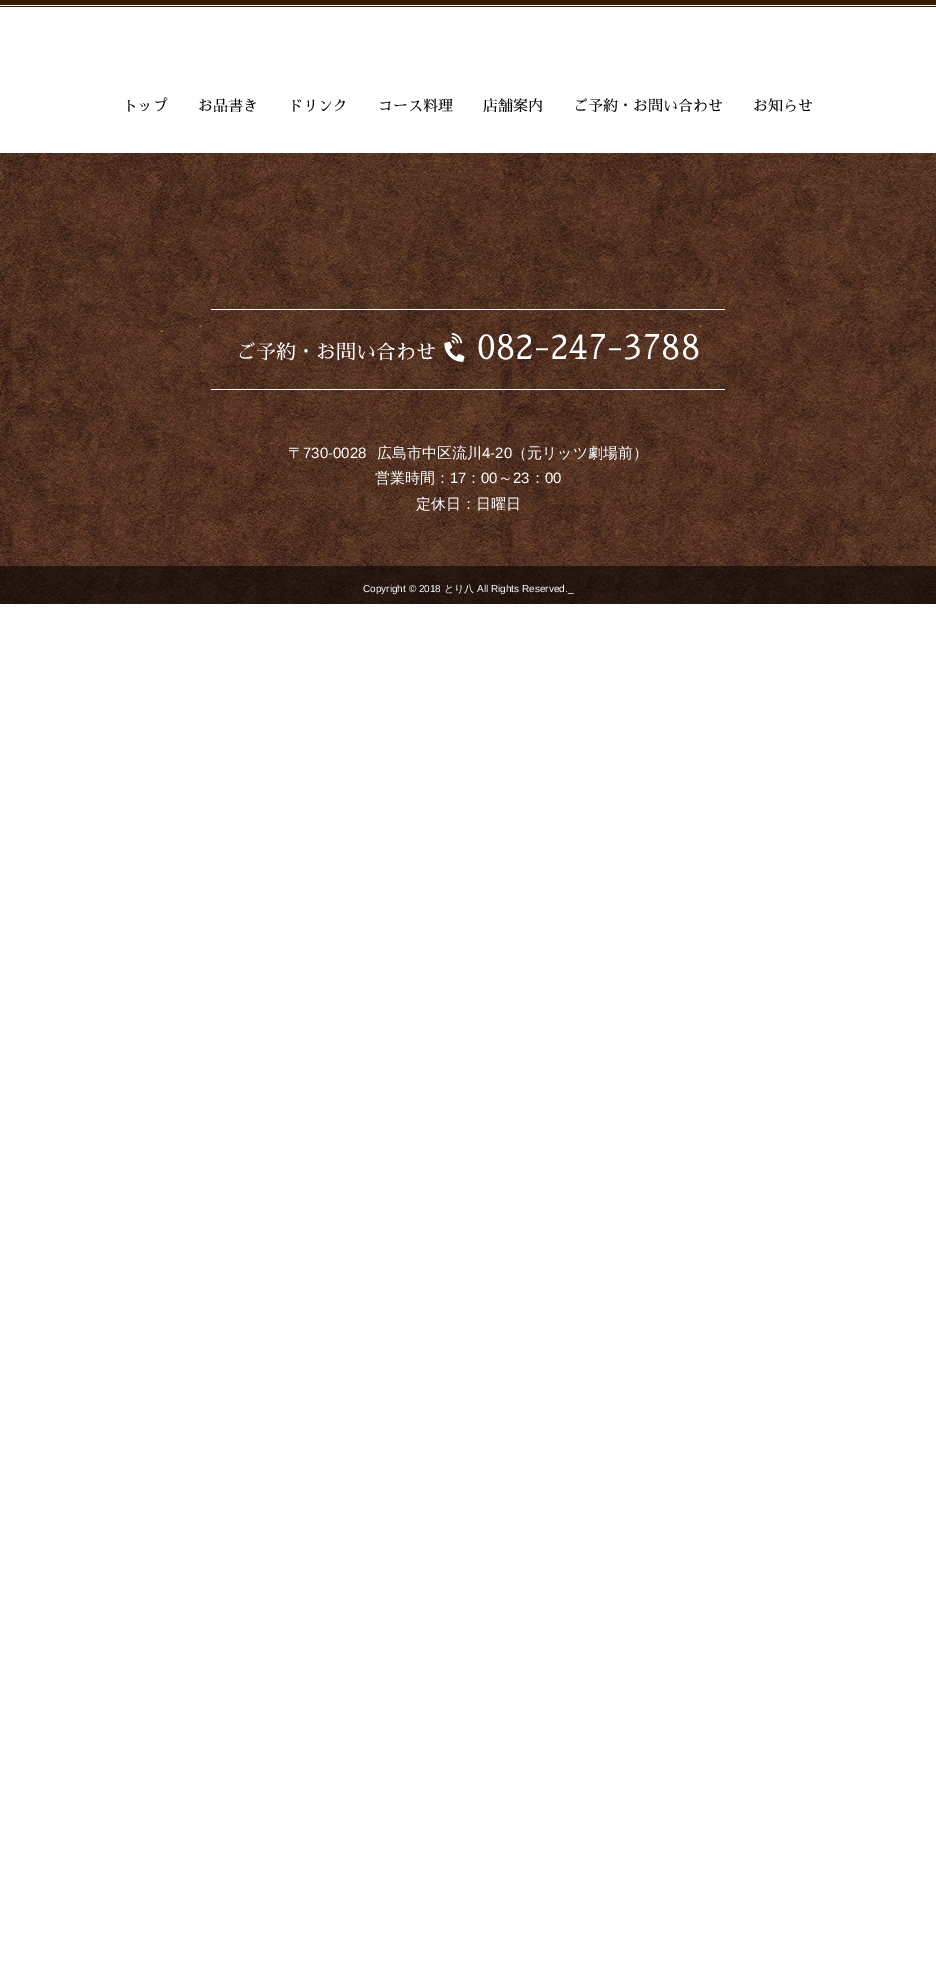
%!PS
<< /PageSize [936 1967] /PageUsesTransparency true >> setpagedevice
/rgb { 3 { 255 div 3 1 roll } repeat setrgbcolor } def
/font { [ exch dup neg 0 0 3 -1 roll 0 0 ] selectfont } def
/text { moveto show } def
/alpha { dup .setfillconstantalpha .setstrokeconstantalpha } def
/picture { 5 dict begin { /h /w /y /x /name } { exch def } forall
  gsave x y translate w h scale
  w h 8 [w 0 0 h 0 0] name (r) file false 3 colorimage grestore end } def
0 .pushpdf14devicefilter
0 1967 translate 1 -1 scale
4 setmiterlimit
255 255 255 rgb
0 0 936 1967 rectfill
50 30 0 rgb
0 0 936 5 rectfill
0 6 936 1 rectfill
(img_01.rgb) 0 153 936 451 picture
255 255 255 rgb
211 309 514 1 rectfill
211 389 514 1 rectfill
(img_02.rgb) 444 333 21 29 picture
0.55 alpha
0 0 0 rgb
0 566 936 38 rectfill
/SawarabiMincho-Regular 15 font
1 alpha
(トップ) 123 111 text
(お品書き) 198 111 text
(ドリンク) 288 111 text
(コース料理) 378 111 text
(店舗案内) 483 111 text
(ご予約・お問い合わせ) 573 111 text
(お知らせ) 753 111 text
/SawarabiMincho-Regular 20 font
255 255 255 rgb
(ご予約・お問い合わせ) 236 359 text
/SawarabiMincho-Regular 34 font
(082-247-3788) 477 359 text
/WenQuanYiZenHei-Medium 15 font
(〒) 288 458 text
/LiberationSans-Regular 15 font
(730-0028) 303 458 text
/WenQuanYiZenHei-Medium 15 font
(広島市中区流川) 377 458 text
/LiberationSans-Regular 15 font
(4-20) 482 458 text
/WenQuanYiZenHei-Medium 15 font
(（元リッツ劇場前）) 512 458 text
(営業時間：) 375 483 text
/LiberationSans-Regular 15 font
(17) 450 483 text
/WenQuanYiZenHei-Medium 15 font
(：) 466 483 text
/LiberationSans-Regular 15 font
(00) 481 483 text
/WenQuanYiZenHei-Medium 15 font
(～) 498 483 text
/LiberationSans-Regular 15 font
(23) 513 483 text
/WenQuanYiZenHei-Medium 15 font
(：) 530 483 text
/LiberationSans-Regular 15 font
(00) 545 483 text
/WenQuanYiZenHei-Medium 15 font
(定休日：日曜日) 416 509 text
/LiberationSans-Regular 10 font
(Copyright © 2018) 363 592 text
/WenQuanYiZenHei-Medium 10 font
(とり八) 444 592 text
/LiberationSans-Regular 10 font
(All Rights Reserved._) 477 592 text
.poppdf14devicefilter showpage
